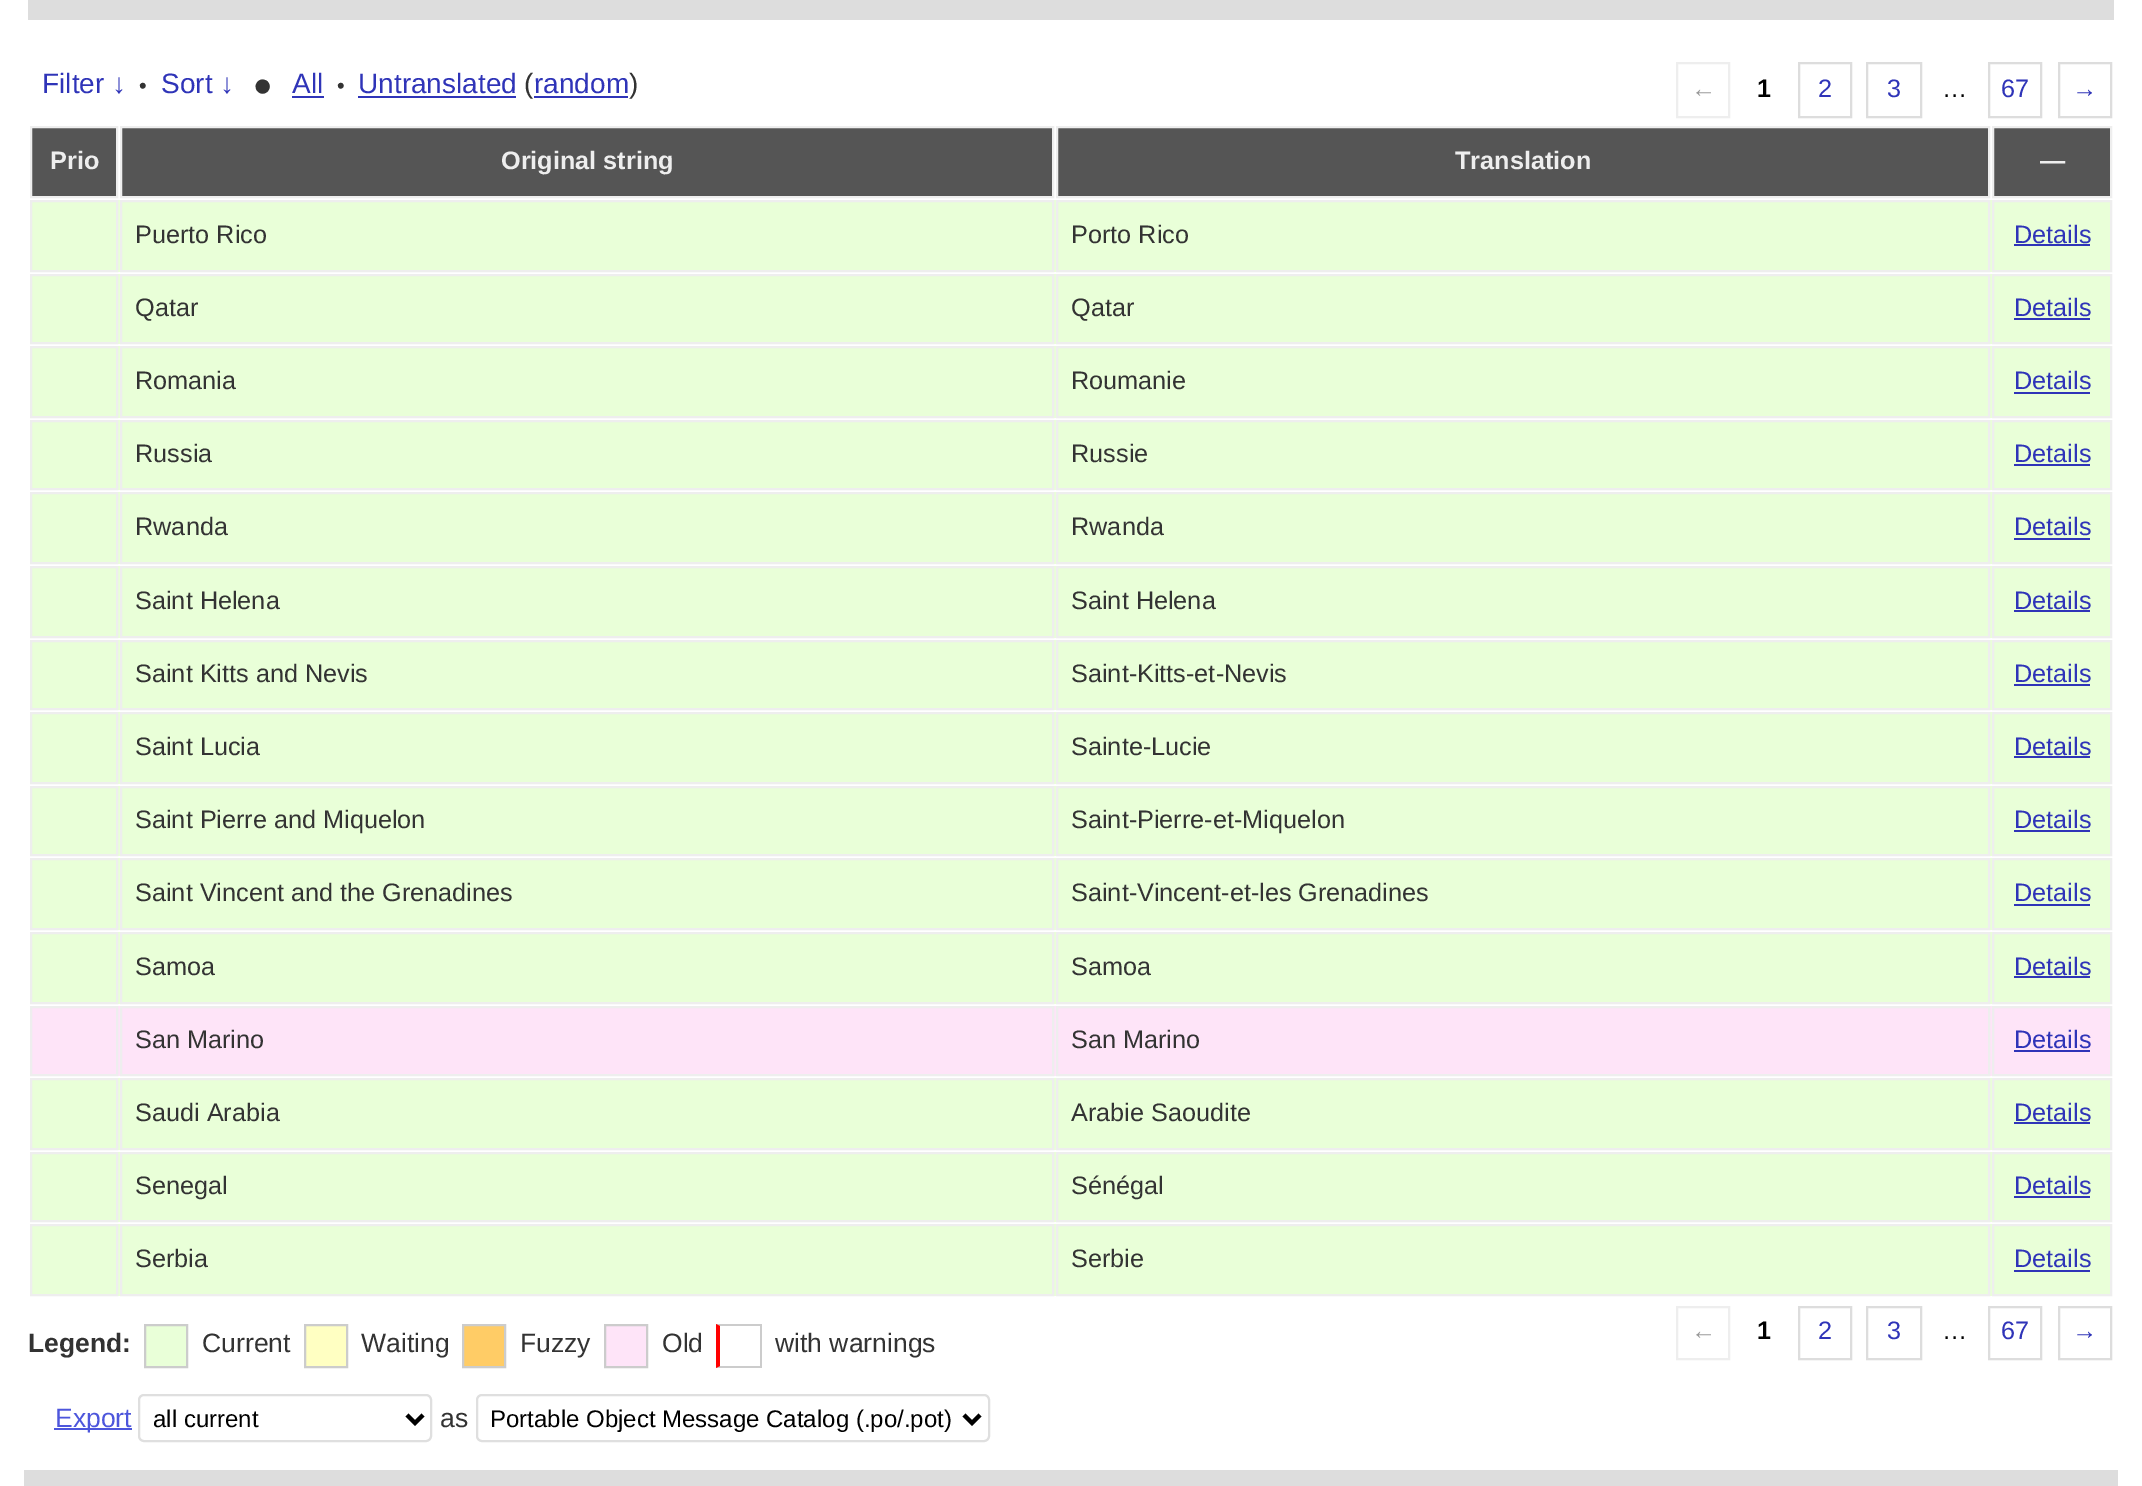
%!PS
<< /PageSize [2142 1486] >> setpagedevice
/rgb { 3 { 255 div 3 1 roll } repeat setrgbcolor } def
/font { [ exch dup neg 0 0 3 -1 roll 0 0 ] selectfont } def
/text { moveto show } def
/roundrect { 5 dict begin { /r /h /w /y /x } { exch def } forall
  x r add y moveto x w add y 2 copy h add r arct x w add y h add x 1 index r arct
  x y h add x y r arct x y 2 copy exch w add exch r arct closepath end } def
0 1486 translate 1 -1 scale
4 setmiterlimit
255 255 255 rgb
0 0 2142 1486 rectfill
221 221 221 rgb
28 0 2086 20 rectfill
47 52 184 rgb
292 96 32 2 rectfill
358 96 158 2 rectfill
534 96 94 2 rectfill
238 238 238 rgb
2 setlinewidth
1677 63 52 54 rectstroke
221 221 221 rgb
1799 63 52 54 rectstroke
1867 63 54 54 rectstroke
1989 63 52 54 rectstroke
2059 63 52 54 rectstroke
85 85 85 rgb
31 127 moveto 86 0 rlineto 0 70 rlineto -86 0 rlineto closepath gsave fill grestore
238 238 238 rgb
stroke
85 85 85 rgb
121 127 moveto 932 0 rlineto 0 70 rlineto -932 0 rlineto closepath gsave fill grestore
238 238 238 rgb
stroke
85 85 85 rgb
1057 127 moveto 932 0 rlineto 0 70 rlineto -932 0 rlineto closepath gsave fill grestore
238 238 238 rgb
stroke
85 85 85 rgb
1993 127 moveto 118 0 rlineto 0 70 rlineto -118 0 rlineto closepath gsave fill grestore
238 238 238 rgb
stroke
233 255 216 rgb
32 200 2078 72 rectfill
238 238 238 rgb
31 201 86 70 rectstroke
121 201 932 70 rectstroke
1057 201 932 70 rectstroke
1993 201 118 70 rectstroke
47 52 184 rgb
2014 244 76 2 rectfill
233 255 216 rgb
32 274 2078 70 rectfill
238 238 238 rgb
31 275 86 68 rectstroke
121 275 932 68 rectstroke
1057 275 932 68 rectstroke
1993 275 118 68 rectstroke
47 52 184 rgb
2014 318 76 2 rectfill
233 255 216 rgb
32 346 2078 72 rectfill
238 238 238 rgb
31 347 86 70 rectstroke
121 347 932 70 rectstroke
1057 347 932 70 rectstroke
1993 347 118 70 rectstroke
47 52 184 rgb
2014 392 76 2 rectfill
233 255 216 rgb
32 420 2078 70 rectfill
238 238 238 rgb
31 421 86 68 rectstroke
121 421 932 68 rectstroke
1057 421 932 68 rectstroke
1993 421 118 68 rectstroke
47 52 184 rgb
2014 464 76 2 rectfill
233 255 216 rgb
32 492 2078 72 rectfill
238 238 238 rgb
31 493 86 70 rectstroke
121 493 932 70 rectstroke
1057 493 932 70 rectstroke
1993 493 118 70 rectstroke
47 52 184 rgb
2014 538 76 2 rectfill
233 255 216 rgb
32 566 2078 72 rectfill
238 238 238 rgb
31 567 86 70 rectstroke
121 567 932 70 rectstroke
1057 567 932 70 rectstroke
1993 567 118 70 rectstroke
47 52 184 rgb
2014 610 76 2 rectfill
233 255 216 rgb
32 640 2078 70 rectfill
238 238 238 rgb
31 641 86 68 rectstroke
121 641 932 68 rectstroke
1057 641 932 68 rectstroke
1993 641 118 68 rectstroke
47 52 184 rgb
2014 684 76 2 rectfill
233 255 216 rgb
32 712 2078 72 rectfill
238 238 238 rgb
31 713 86 70 rectstroke
121 713 932 70 rectstroke
1057 713 932 70 rectstroke
1993 713 118 70 rectstroke
47 52 184 rgb
2014 756 76 2 rectfill
233 255 216 rgb
32 786 2078 70 rectfill
238 238 238 rgb
31 787 86 68 rectstroke
121 787 932 68 rectstroke
1057 787 932 68 rectstroke
1993 787 118 68 rectstroke
47 52 184 rgb
2014 830 76 2 rectfill
233 255 216 rgb
32 858 2078 72 rectfill
238 238 238 rgb
31 859 86 70 rectstroke
121 859 932 70 rectstroke
1057 859 932 70 rectstroke
1993 859 118 70 rectstroke
47 52 184 rgb
2014 904 76 2 rectfill
233 255 216 rgb
32 932 2078 72 rectfill
238 238 238 rgb
31 933 86 70 rectstroke
121 933 932 70 rectstroke
1057 933 932 70 rectstroke
1993 933 118 70 rectstroke
47 52 184 rgb
2014 976 76 2 rectfill
254 228 248 rgb
32 1006 2078 70 rectfill
238 238 238 rgb
31 1007 86 68 rectstroke
121 1007 932 68 rectstroke
1057 1007 932 68 rectstroke
1993 1007 118 68 rectstroke
47 52 184 rgb
2014 1050 76 2 rectfill
233 255 216 rgb
32 1078 2078 72 rectfill
238 238 238 rgb
31 1079 86 70 rectstroke
121 1079 932 70 rectstroke
1057 1079 932 70 rectstroke
1993 1079 118 70 rectstroke
47 52 184 rgb
2014 1122 76 2 rectfill
233 255 216 rgb
32 1152 2078 70 rectfill
238 238 238 rgb
31 1153 86 68 rectstroke
121 1153 932 68 rectstroke
1057 1153 932 68 rectstroke
1993 1153 118 68 rectstroke
47 52 184 rgb
2014 1196 76 2 rectfill
233 255 216 rgb
32 1224 2078 72 rectfill
238 238 238 rgb
31 1225 86 70 rectstroke
121 1225 932 70 rectstroke
1057 1225 932 70 rectstroke
1993 1225 118 70 rectstroke
47 52 184 rgb
2014 1270 76 2 rectfill
233 255 216 rgb
145 1325 moveto 42 0 rlineto 0 42 rlineto -42 0 rlineto closepath gsave fill grestore
204 204 204 rgb
stroke
255 255 194 rgb
305 1325 moveto 42 0 rlineto 0 42 rlineto -42 0 rlineto closepath gsave fill grestore
204 204 204 rgb
stroke
255 204 102 rgb
463 1325 moveto 42 0 rlineto 0 42 rlineto -42 0 rlineto closepath gsave fill grestore
204 204 204 rgb
stroke
254 228 248 rgb
605 1325 moveto 42 0 rlineto 0 42 rlineto -42 0 rlineto closepath gsave fill grestore
204 204 204 rgb
stroke
716 1324 moveto 46 0 rlineto -2 2 rlineto -40 0 rlineto closepath fill
760 1324 2 44 rectfill
762 1368 moveto -46 0 rlineto 4 -2 rlineto 40 0 rlineto closepath fill
255 0 0 rgb
716 1368 moveto 0 -44 rlineto 4 2 rlineto 0 40 rlineto closepath fill
238 238 238 rgb
1677 1307 52 52 rectstroke
221 221 221 rgb
1799 1307 52 52 rectstroke
1867 1307 54 52 rectstroke
1989 1307 52 52 rectstroke
2059 1307 52 52 rectstroke
77 86 220 rgb
54 1428 78 2 rectfill
223 223 223 rgb
139 1395 292 46 5 roundrect stroke
0 0 0 rgb
4 setlinewidth
407 1415 moveto 8 8 rlineto 8 -8 rlineto stroke
223 223 223 rgb
2 setlinewidth
477 1395 512 46 5 roundrect stroke
0 0 0 rgb
4 setlinewidth
964 1415 moveto 8 8 rlineto 8 -8 rlineto stroke
221 221 221 rgb
24 1470 2094 16 rectfill
/LiberationSans-Regular 28 font
47 52 184 rgb
(Filter ↓) 42 93 text
/LiberationSans-Regular 22 font
51 51 51 rgb
(•) 139 93 text
/LiberationSans-Regular 28 font
47 52 184 rgb
(Sort ↓) 161 93 text
/LiberationSans-Bold 50 font
51 51 51 rgb
(•) 254 103 text
/LiberationSans-Regular 28 font
47 52 184 rgb
(All) 292 93 text
/LiberationSans-Regular 22 font
51 51 51 rgb
(•) 337 93 text
/LiberationSans-Regular 28 font
47 52 184 rgb
(Untranslated) 358 93 text
51 51 51 rgb
(\() 524 93 text
47 52 184 rgb
(random) 534 93 text
51 51 51 rgb
(\)) 629 93 text
/LiberationSans-Regular 25.25 font
153 153 153 rgb
(←) 1691 97 text
/LiberationSans-Bold 25.25 font
0 0 0 rgb
(1) 1757 97 text
/LiberationSans-Regular 25.25 font
47 52 184 rgb
(2) 1818 97 text
(3) 1887 97 text
0 0 0 rgb
(…) 1942 97 text
47 52 184 rgb
(67) 2001 97 text
(→) 2072 97 text
/LiberationSans-Bold 25.25 font
238 238 238 rgb
(Prio) 50 169 text
(Original string) 501 169 text
(Translation) 1455 169 text
(—) 2040 169 text
/LiberationSans-Regular 25.25 font
51 51 51 rgb
(Puerto Rico) 135 243 text
(Porto Rico) 1071 243 text
47 52 184 rgb
(Details) 2014 243 text
51 51 51 rgb
(Qatar) 135 316 text
(Qatar) 1071 316 text
47 52 184 rgb
(Details) 2014 316 text
51 51 51 rgb
(Romania) 135 389 text
(Roumanie) 1071 389 text
47 52 184 rgb
(Details) 2014 389 text
51 51 51 rgb
(Russia) 135 462 text
(Russie) 1071 462 text
47 52 184 rgb
(Details) 2014 462 text
51 51 51 rgb
(Rwanda) 135 535 text
(Rwanda) 1071 535 text
47 52 184 rgb
(Details) 2014 535 text
51 51 51 rgb
(Saint Helena) 135 609 text
(Saint Helena) 1071 609 text
47 52 184 rgb
(Details) 2014 609 text
51 51 51 rgb
(Saint Kitts and Nevis) 135 682 text
(Saint-Kitts-et-Nevis) 1071 682 text
47 52 184 rgb
(Details) 2014 682 text
51 51 51 rgb
(Saint Lucia) 135 755 text
(Sainte-Lucie) 1071 755 text
47 52 184 rgb
(Details) 2014 755 text
51 51 51 rgb
(Saint Pierre and Miquelon) 135 828 text
(Saint-Pierre-et-Miquelon) 1071 828 text
47 52 184 rgb
(Details) 2014 828 text
51 51 51 rgb
(Saint Vincent and the Grenadines) 135 901 text
(Saint-Vincent-et-les Grenadines) 1071 901 text
47 52 184 rgb
(Details) 2014 901 text
51 51 51 rgb
(Samoa) 135 975 text
(Samoa) 1071 975 text
47 52 184 rgb
(Details) 2014 975 text
51 51 51 rgb
(San Marino) 135 1048 text
(San Marino) 1071 1048 text
47 52 184 rgb
(Details) 2014 1048 text
51 51 51 rgb
(Saudi Arabia) 135 1121 text
(Arabie Saoudite) 1071 1121 text
47 52 184 rgb
(Details) 2014 1121 text
51 51 51 rgb
(Senegal) 135 1194 text
(Sénégal) 1071 1194 text
47 52 184 rgb
(Details) 2014 1194 text
51 51 51 rgb
(Serbia) 135 1267 text
(Serbie) 1071 1267 text
47 52 184 rgb
(Details) 2014 1267 text
/LiberationSans-Bold 26.5 font
51 51 51 rgb
(Legend:) 28 1352 text
/LiberationSans-Regular 26.5 font
(Current) 202 1352 text
(Waiting) 361 1352 text
(Fuzzy) 520 1352 text
(Old) 662 1352 text
(with warnings) 775 1352 text
/LiberationSans-Regular 25.25 font
153 153 153 rgb
(←) 1691 1339 text
/LiberationSans-Bold 25.25 font
0 0 0 rgb
(1) 1757 1339 text
/LiberationSans-Regular 25.25 font
47 52 184 rgb
(2) 1818 1339 text
(3) 1887 1339 text
0 0 0 rgb
(…) 1942 1339 text
47 52 184 rgb
(67) 2001 1339 text
(→) 2072 1339 text
/LiberationSans-Regular 26.5 font
77 86 220 rgb
(Export) 55 1427 text
/LiberationSans-Regular 24 font
0 0 0 rgb
(all current) 153 1427 text
/LiberationSans-Regular 26.5 font
51 51 51 rgb
(as) 440 1427 text
/LiberationSans-Regular 24 font
0 0 0 rgb
(Portable Object Message Catalog \(.po/.pot\)) 490 1427 text
showpage
